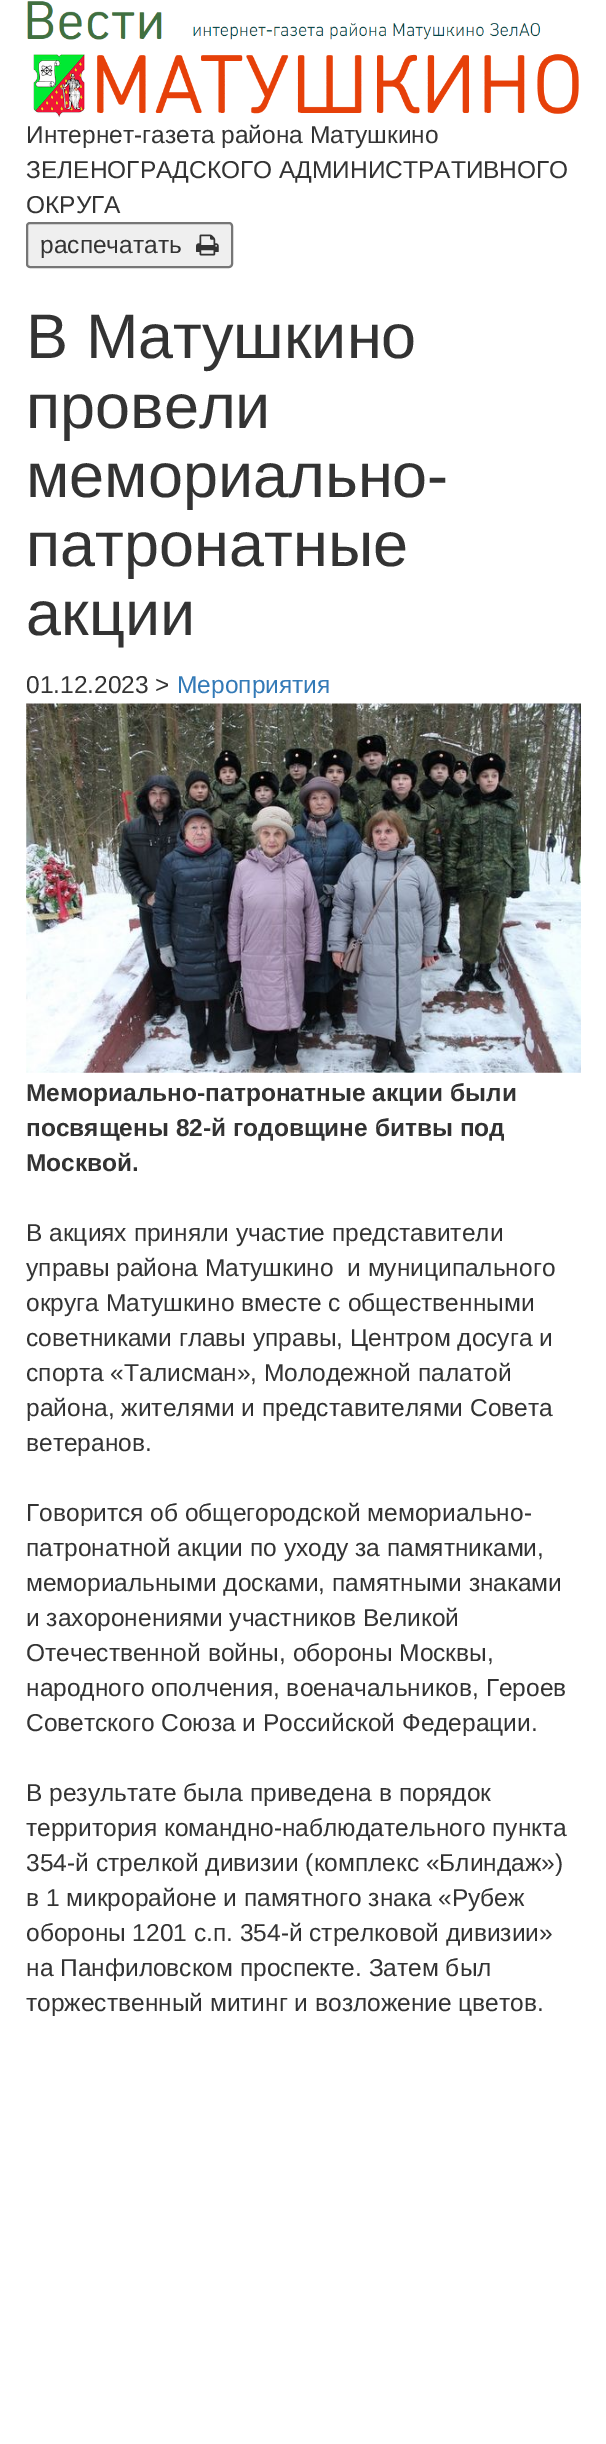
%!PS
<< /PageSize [606 2444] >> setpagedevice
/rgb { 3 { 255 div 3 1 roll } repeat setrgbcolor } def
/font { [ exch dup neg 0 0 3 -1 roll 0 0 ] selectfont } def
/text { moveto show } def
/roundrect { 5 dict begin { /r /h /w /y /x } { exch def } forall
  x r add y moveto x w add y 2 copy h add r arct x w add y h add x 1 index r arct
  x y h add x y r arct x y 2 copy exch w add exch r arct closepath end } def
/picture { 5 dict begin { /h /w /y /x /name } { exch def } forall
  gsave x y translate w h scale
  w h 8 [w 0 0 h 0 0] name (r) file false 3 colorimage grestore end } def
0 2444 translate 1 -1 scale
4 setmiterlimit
255 255 255 rgb
0 0 606 2444 rectfill
(img_01.rgb) 27 1 552 117 picture
239 239 239 rgb
27 223 205 44 3 roundrect gsave fill grestore
118 118 118 rgb
2 setlinewidth
stroke
(img_02.rgb) 196 234 23 22 picture
(img_03.rgb) 26 703 555 370 picture
/LiberationSans-Regular 24.5 font
51 51 51 rgb
(Интернет-газета района Матушкино) 26 143 text
(ЗЕЛЕНОГРАДСКОГО АДМИНИСТРАТИВНОГО) 26 178 text
(ОКРУГА) 26 213 text
(распечатать) 40 253 text
/LiberationSans-Regular 63 font
(В Матушкино) 26 358 text
(провели) 26 428 text
(мемориально-) 26 497 text
(патронатные) 26 566 text
(акции) 26 635 text
/LiberationSans-Regular 24.5 font
(01.12.2023 >) 26 693 text
51 122 183 rgb
(Мероприятия) 177 693 text
/LiberationSans-Bold 24.5 font
51 51 51 rgb
(Мемориально-патронатные акции были) 26 1101 text
(посвящены 82-й годовщине битвы под) 26 1136 text
(Москвой.) 26 1171 text
/LiberationSans-Regular 24.5 font
(В акциях приняли участие представители) 26 1241 text
(управы района Матушкино  и муниципального) 26 1276 text
(округа Матушкино вместе с общественными) 26 1311 text
(советниками главы управы, Центром досуга и) 26 1346 text
(спорта «Талисман», Молодежной палатой) 26 1381 text
(района, жителями и представителями Совета) 26 1416 text
(ветеранов.) 26 1451 text
(Говорится об общегородской мемориально-) 26 1521 text
(патронатной акции по уходу за памятниками,) 26 1556 text
(мемориальными досками, памятными знаками) 26 1591 text
(и захоронениями участников Великой) 26 1626 text
(Отечественной войны, обороны Москвы,) 26 1661 text
(народного ополчения, военачальников, Героев) 26 1696 text
(Советского Союза и Российской Федерации.) 26 1731 text
(В результате была приведена в порядок) 26 1801 text
(территория командно-наблюдательного пункта) 26 1836 text
(354-й стрелкой дивизии \(комплекс «Блиндаж»\)) 26 1871 text
(в 1 микрорайоне и памятного знака «Рубеж) 26 1906 text
(обороны 1201 с.п. 354-й стрелковой дивизии») 26 1941 text
(на Панфиловском проспекте. Затем был) 26 1976 text
(торжественный митинг и возложение цветов.) 26 2011 text
showpage
